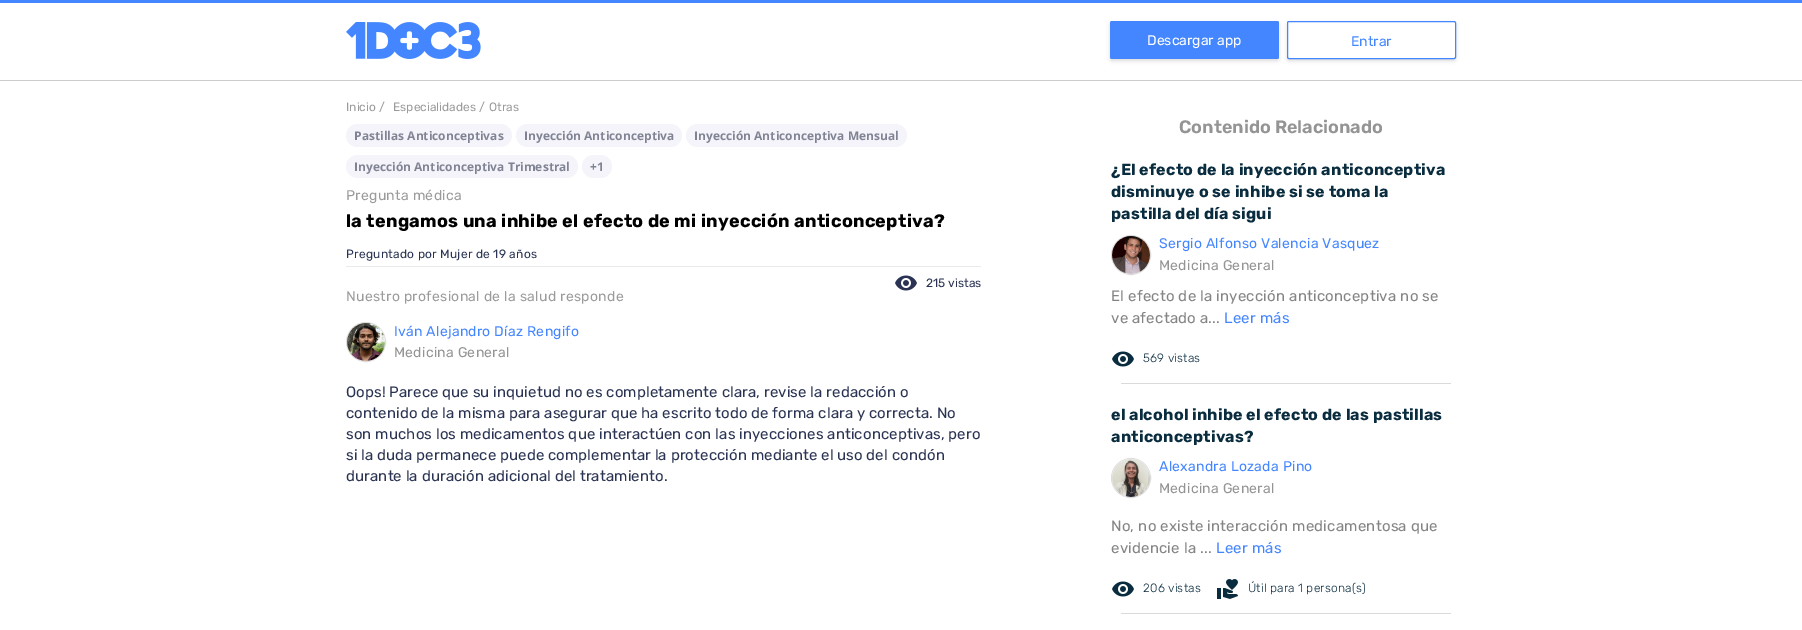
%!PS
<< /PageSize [1802 630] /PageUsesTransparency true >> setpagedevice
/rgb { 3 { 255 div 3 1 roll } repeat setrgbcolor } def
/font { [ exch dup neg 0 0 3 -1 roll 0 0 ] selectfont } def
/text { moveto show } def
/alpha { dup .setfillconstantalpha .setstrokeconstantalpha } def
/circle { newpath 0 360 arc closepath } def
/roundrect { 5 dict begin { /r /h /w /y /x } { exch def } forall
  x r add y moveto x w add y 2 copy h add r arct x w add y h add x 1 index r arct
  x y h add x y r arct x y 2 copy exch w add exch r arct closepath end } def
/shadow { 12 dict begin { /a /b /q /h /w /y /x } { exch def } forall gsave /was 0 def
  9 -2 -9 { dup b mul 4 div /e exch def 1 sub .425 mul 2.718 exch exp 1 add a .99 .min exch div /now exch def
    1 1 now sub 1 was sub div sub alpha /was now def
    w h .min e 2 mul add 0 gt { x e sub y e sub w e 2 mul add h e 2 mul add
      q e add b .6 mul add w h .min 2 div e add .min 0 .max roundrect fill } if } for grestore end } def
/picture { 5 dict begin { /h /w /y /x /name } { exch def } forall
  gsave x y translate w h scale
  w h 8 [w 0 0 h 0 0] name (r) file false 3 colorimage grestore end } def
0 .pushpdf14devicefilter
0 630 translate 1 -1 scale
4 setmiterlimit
255 255 255 rgb
0 0 1802 630 rectfill
204 204 204 rgb
0 80 1802 1 rectfill
68 134 255 rgb
0 0 1802 3 rectfill
(img_01.rgb) 346 22 135 37 picture
202 202 202 rgb
1110 23 169 38 2 2 0.7 shadow
68 134 255 rgb
1110 21 169 38 2 roundrect fill
202 202 202 rgb
1287 23 169 38 2 2 0.7 shadow
255 255 255 rgb
1287.5 21.5 168 37 1.5 roundrect gsave fill grestore
68 134 255 rgb
stroke
244 244 250 rgb
346 124 166 23 11.5 roundrect fill
516 124 166 23 11.5 roundrect fill
686 124 221 23 11.5 roundrect fill
346 155 232 23 11.5 roundrect fill
582 155 30 23 11.5 roundrect fill
234 234 234 rgb
346 266 635 1 rectfill
(img_02.rgb) 895 275 22 16 picture
221 221 221 rgb
366 342 19.5 circle stroke
(img_03.rgb) 347 323 38 38 picture
1131 255 19.5 circle stroke
(img_04.rgb) 1112 236 38 38 picture
(img_05.rgb) 1112 351 22 16 picture
218 218 218 rgb
1121 383 330 1 rectfill
221 221 221 rgb
1131 478 19.5 circle stroke
(img_06.rgb) 1112 459 38 38 picture
(img_05.rgb) 1112 581 22 16 picture
(img_07.rgb) 1217 579 21 20 picture
218 218 218 rgb
1121 613 330 1 rectfill
/Rubik-Regular 14 font
255 255 255 rgb
(Descargar app) 1147 45 text
68 134 255 rgb
(Entrar) 1351 46 text
/Rubik-Regular 12 font
155 155 155 rgb
(Inicio /) 346 111 text
(Especialidades /) 393 111 text
(Otras) 489 111 text
/OpenSans-Bold 12 font
128 131 147 rgb
(Pastillas Anticonceptivas) 354 140 text
(Inyección Anticonceptiva) 524 140 text
(Inyección Anticonceptiva Mensual) 694 140 text
(Inyección Anticonceptiva Trimestral) 354 171 text
(+1) 590 171 text
/Rubik-Regular 14 font
155 155 155 rgb
346 200 moveto 0.3 0 (Pregunta médica) ashow
/Rubik-Bold 18 font
0 0 0 rgb
346 227 moveto 0.25 0 (la tengamos una inhibe el efecto de mi inyección anticonceptiva?) ashow
/Rubik-Regular 12 font
42 51 83 rgb
346 258 moveto 0.25 0 (Preguntado por Mujer de 19 años) ashow
(215 vistas) 926 287 text
/Rubik-Regular 14 font
155 155 155 rgb
346 301 moveto 0.3 0 (Nuestro profesional de la salud responde) ashow
68 134 255 rgb
394 336 moveto 0.25 0 (Iván Alejandro Díaz Rengifo) ashow
149 147 147 rgb
394 357 moveto 0.25 0 (Medicina General) ashow
/Rubik-Regular 15 font
42 51 83 rgb
346 397 moveto 0.1 0 (Oops! Parece que su inquietud no es completamente clara, revise la redacción o) ashow
346 418 moveto 0.1 0 (contenido de la misma para asegurar que ha escrito todo de forma clara y correcta. No) ashow
346 439 moveto 0.1 0 (son muchos los medicamentos que interactúen con las inyecciones anticonceptivas, pero) ashow
346 460 moveto 0.1 0 (si la duda permanece puede complementar la protección mediante el uso del condón) ashow
346 481 moveto 0.1 0 (durante la duración adicional del tratamiento.) ashow
/Rubik-SemiBold 18 font
149 147 147 rgb
(Contenido Relacionado) 1179 133 text
/Rubik-Bold 16 font
10 44 63 rgb
1111 175 moveto 0.2 0 (¿El efecto de la inyección anticonceptiva) ashow
1111 197 moveto 0.2 0 (disminuye o se inhibe si se toma la) ashow
1111 219 moveto 0.2 0 (pastilla del día sigui) ashow
/Rubik-Regular 14 font
68 134 255 rgb
1159 248 moveto 0.25 0 (Sergio Alfonso Valencia Vasquez) ashow
149 147 147 rgb
1159 270 moveto 0.25 0 (Medicina General) ashow
/Rubik-Regular 15 font
133 131 131 rgb
1111 301 moveto 0.2 0 (El efecto de la inyección anticonceptiva no se) ashow
1111 323 moveto 0.2 0 (ve afectado a...) ashow
68 134 255 rgb
1224 323 moveto 0.2 0 (Leer más) ashow
/Rubik-Light 12 font
10 44 63 rgb
1143 362 moveto 0.2 0 (569 vistas) ashow
/Rubik-Bold 16 font
1111 420 moveto 0.2 0 (el alcohol inhibe el efecto de las pastillas) ashow
1111 442 moveto 0.2 0 (anticonceptivas?) ashow
/Rubik-Regular 14 font
68 134 255 rgb
1159 471 moveto 0.25 0 (Alexandra Lozada Pino) ashow
149 147 147 rgb
1159 493 moveto 0.25 0 (Medicina General) ashow
/Rubik-Regular 15 font
133 131 131 rgb
1111 531 moveto 0.2 0 (No, no existe interacción medicamentosa que) ashow
1111 553 moveto 0.2 0 (evidencie la ...) ashow
68 134 255 rgb
1216 553 moveto 0.2 0 (Leer más) ashow
/Rubik-Light 12 font
10 44 63 rgb
1143 592 moveto 0.2 0 (206 vistas) ashow
1248 592 moveto 0.2 0 (Útil para 1 persona\(s\)) ashow
.poppdf14devicefilter showpage
